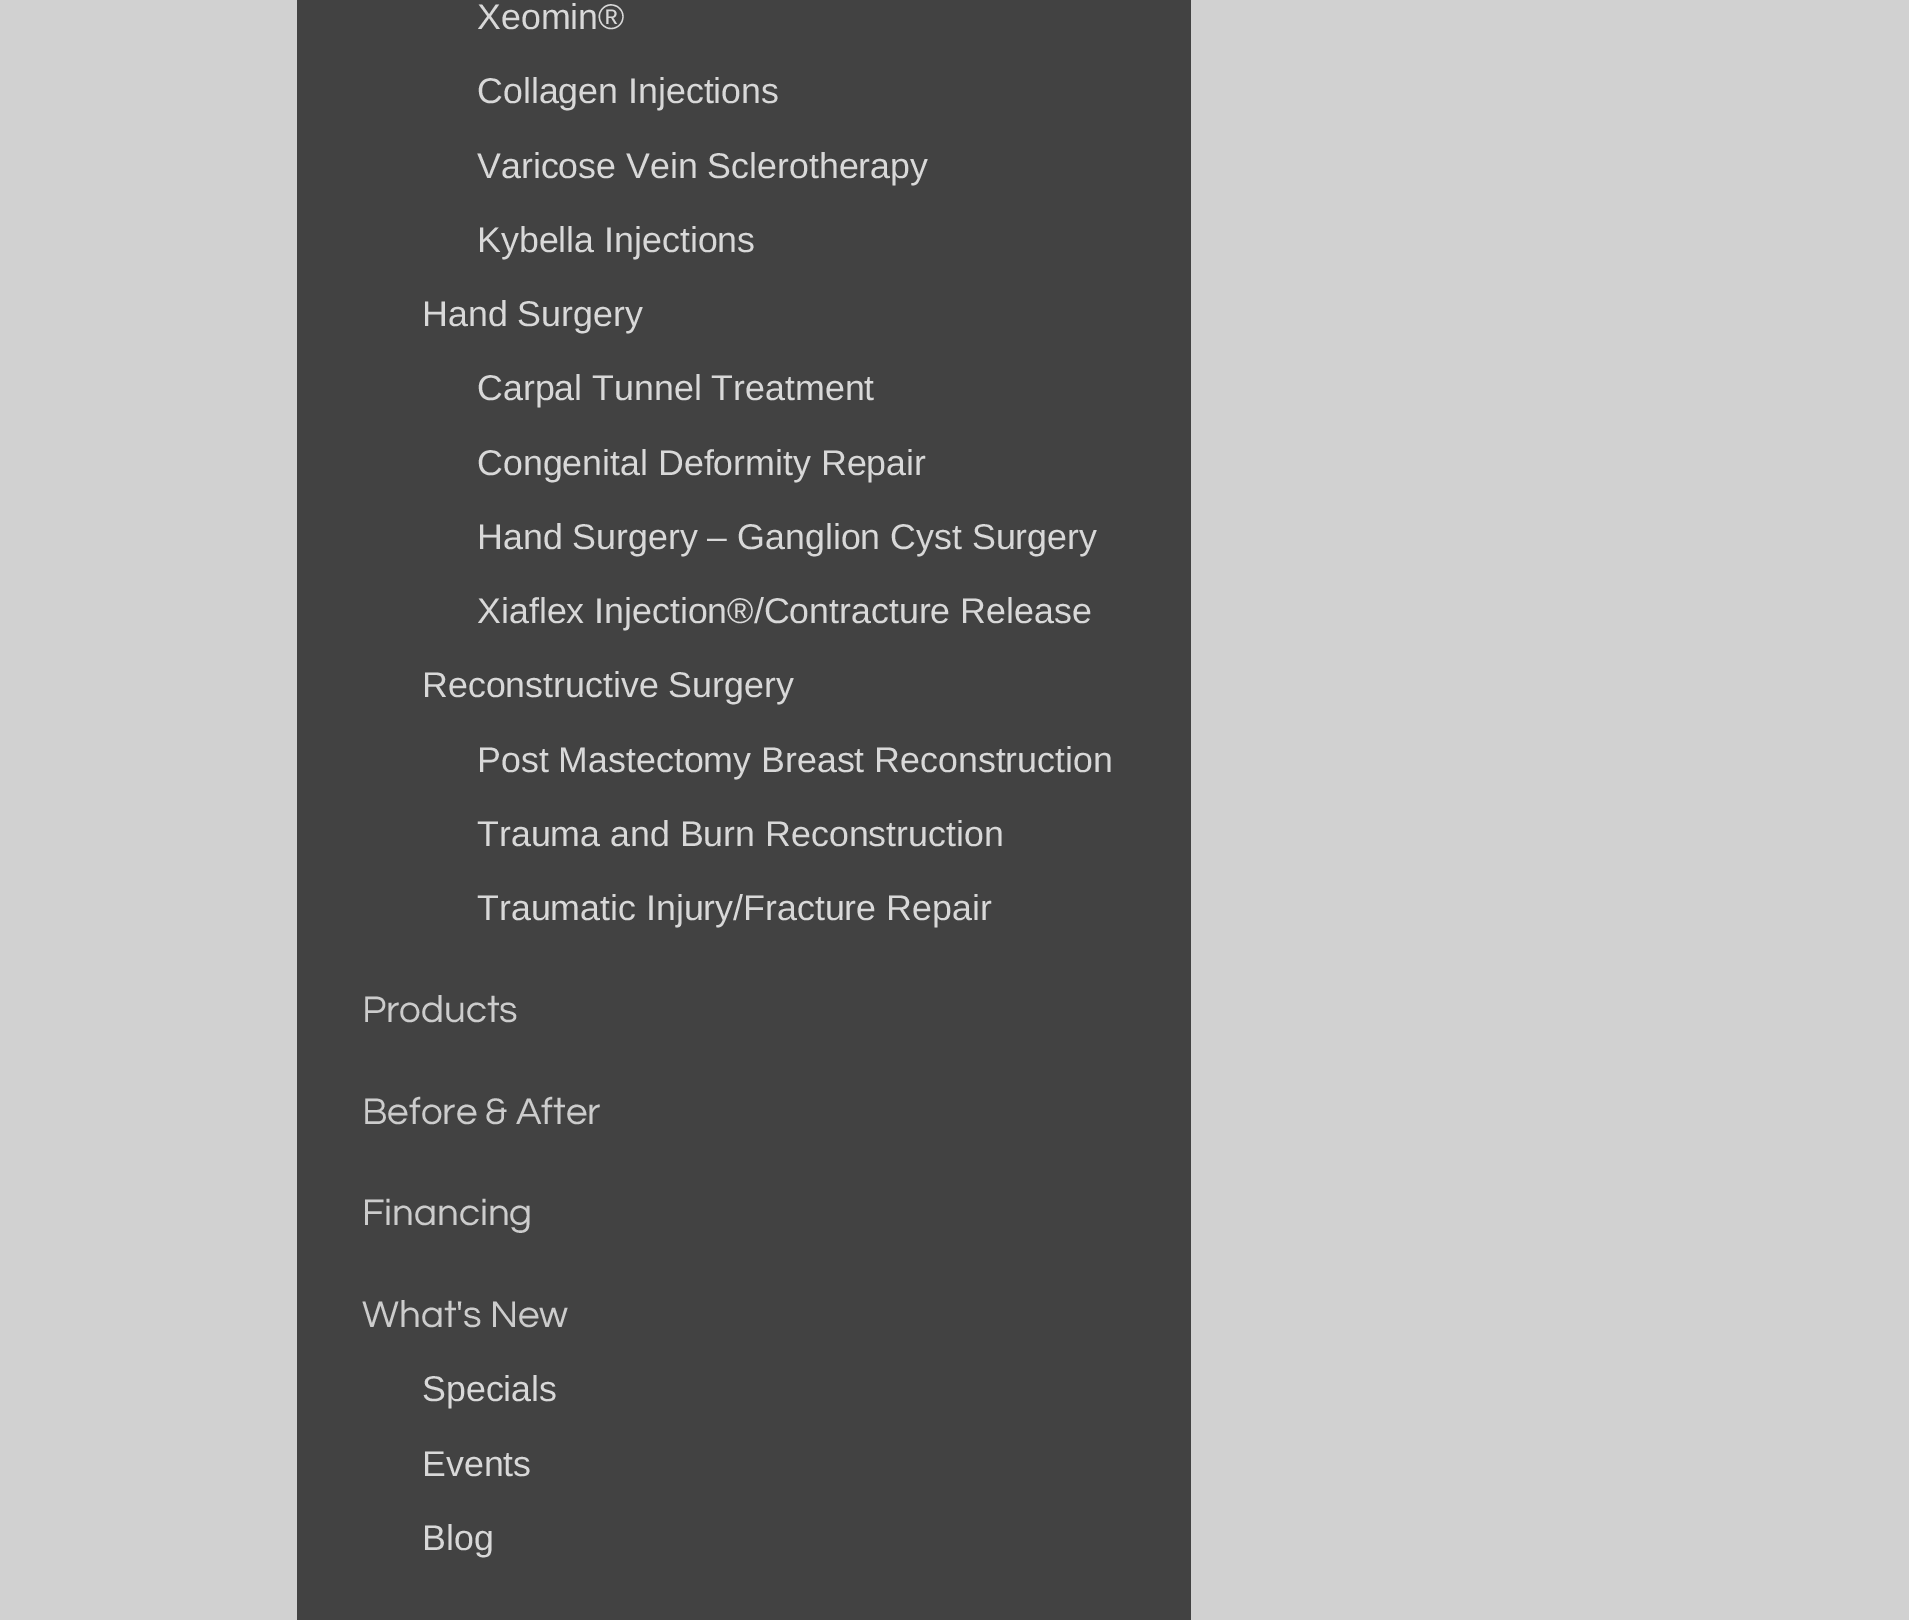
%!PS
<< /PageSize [1909 1620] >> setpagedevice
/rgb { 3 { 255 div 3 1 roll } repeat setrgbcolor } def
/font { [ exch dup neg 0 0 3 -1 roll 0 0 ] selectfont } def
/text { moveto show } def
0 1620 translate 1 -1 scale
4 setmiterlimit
209 209 209 rgb
0 0 1909 1620 rectfill
66 66 66 rgb
297 0 894 1620 rectfill
/LiberationSans-Regular 35.75 font
216 216 216 rgb
(Xeomin®) 477 29 text
(Collagen Injections) 477 103 text
(Varicose Vein Sclerotherapy) 477 178 text
(Kybella Injections) 477 252 text
(Hand Surgery) 422 326 text
(Carpal Tunnel Treatment) 477 400 text
(Congenital Deformity Repair) 477 475 text
(Hand Surgery – Ganglion Cyst Surgery) 477 549 text
(Xiaflex Injection®/Contracture Release) 477 623 text
(Reconstructive Surgery) 422 697 text
(Post Mastectomy Breast Reconstruction) 477 772 text
(Trauma and Burn Reconstruction) 477 846 text
(Traumatic Injury/Fracture Repair) 477 920 text
/Questrial-Regular 38.5 font
204 204 204 rgb
(Products) 362 1022 text
(Before & After) 362 1124 text
(Financing) 362 1225 text
(What's New) 362 1327 text
/LiberationSans-Regular 35.75 font
216 216 216 rgb
(Specials) 422 1401 text
(Events) 422 1476 text
(Blog) 422 1550 text
showpage
